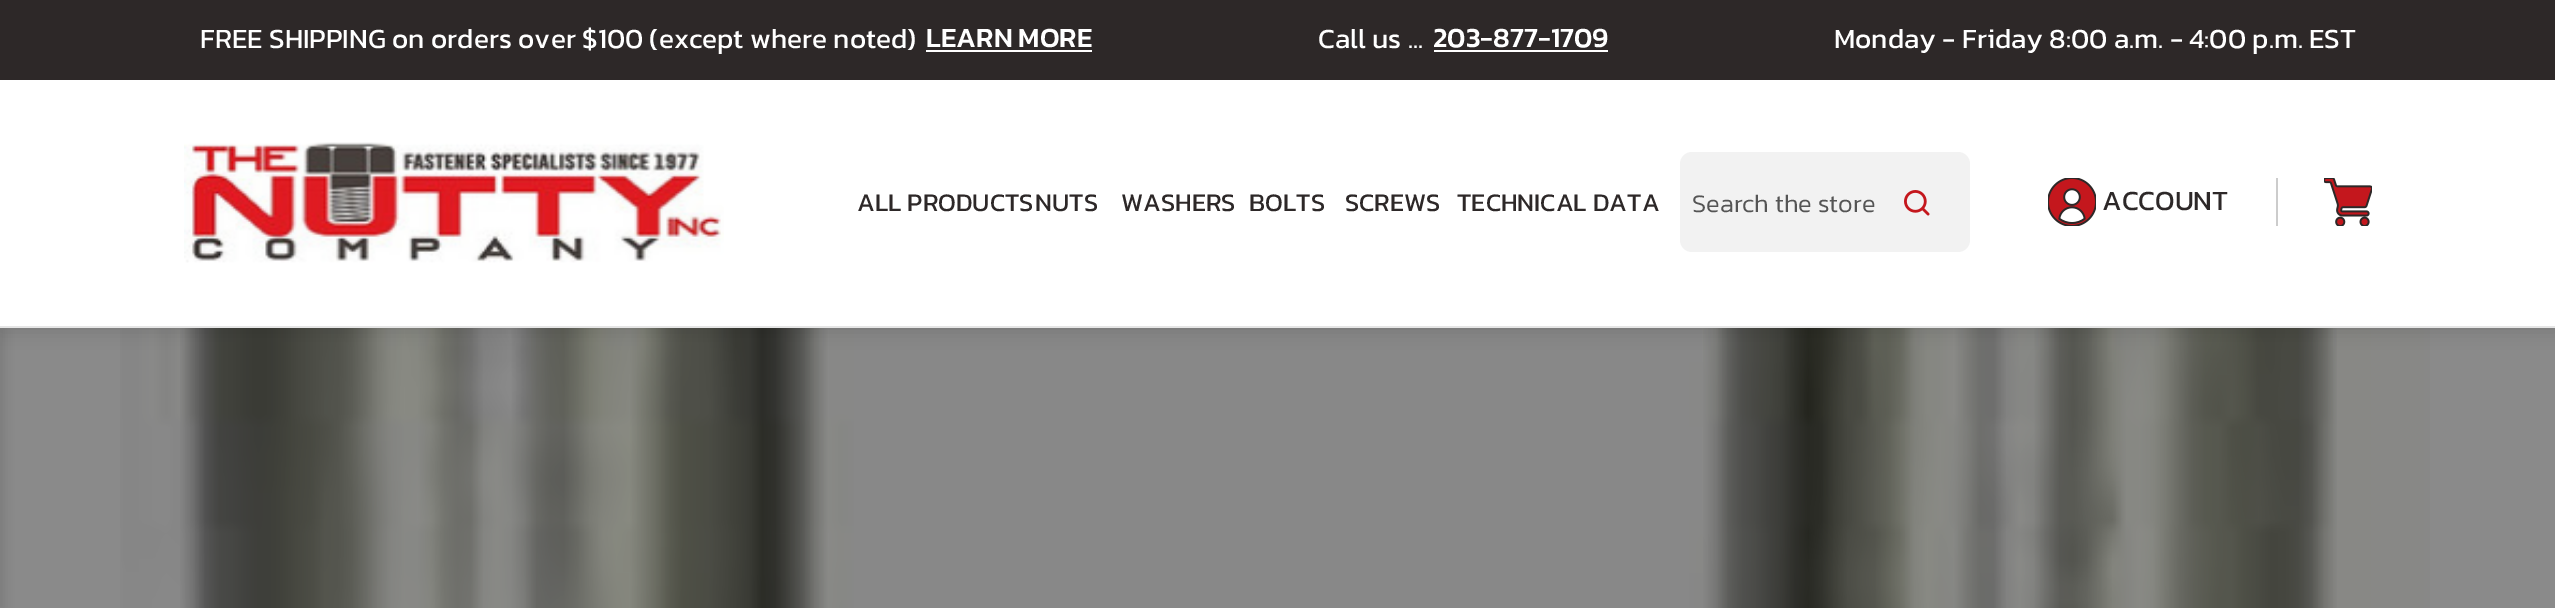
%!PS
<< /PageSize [2555 608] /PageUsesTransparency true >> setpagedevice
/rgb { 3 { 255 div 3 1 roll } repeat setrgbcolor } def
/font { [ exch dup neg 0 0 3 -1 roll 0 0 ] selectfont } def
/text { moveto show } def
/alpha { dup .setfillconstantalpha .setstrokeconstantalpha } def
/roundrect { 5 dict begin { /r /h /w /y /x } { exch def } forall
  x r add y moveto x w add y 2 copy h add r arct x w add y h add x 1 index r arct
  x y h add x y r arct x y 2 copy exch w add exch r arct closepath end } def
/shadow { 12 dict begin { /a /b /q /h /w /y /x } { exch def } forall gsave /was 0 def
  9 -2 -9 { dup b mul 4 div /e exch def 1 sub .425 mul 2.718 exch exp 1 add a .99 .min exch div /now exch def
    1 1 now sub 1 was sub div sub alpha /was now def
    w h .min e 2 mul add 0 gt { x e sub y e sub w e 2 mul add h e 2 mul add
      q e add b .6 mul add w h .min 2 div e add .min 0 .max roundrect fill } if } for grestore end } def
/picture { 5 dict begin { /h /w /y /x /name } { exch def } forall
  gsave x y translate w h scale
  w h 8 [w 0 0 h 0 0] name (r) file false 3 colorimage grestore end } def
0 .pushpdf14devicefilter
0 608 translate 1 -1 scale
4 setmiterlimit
138 138 138 rgb
0 0 2555 608 rectfill
(img_05.rgb) 120 328 2310 280 picture
0 0 0 rgb
0 84 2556 248 0 8 0.1 shadow
45 40 40 rgb
0 0 2555 80 rectfill
255 255 255 rgb
926 50 166 2 rectfill
1434 50 174 2 rectfill
0 0 0 rgb
-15 328 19 280 0 5 0.1 shadow
255 255 255 rgb
0 80 2555 246 rectfill
229 229 229 rgb
0 326 2555 2 rectfill
(img_01.rgb) 184 142 540 121 picture
242 242 242 rgb
1680 152 290 100 12 roundrect fill
(img_02.rgb) 1904 190 26 26 picture
(img_03.rgb) 2048 178 48 48 picture
204 204 204 rgb
2276 178 2 48 rectfill
(img_04.rgb) 2324 178 48 48 picture
/Kanit-Regular 28 font
255 255 255 rgb
(FREE SHIPPING on orders over $100 \(except where noted\)) 200 48 text
/Kanit-Medium 28 font
(LEARN MORE) 926 47 text
/Kanit-Regular 28 font
(Call us ...) 1318 48 text
/Kanit-Medium 28 font
(203-877-1709) 1433 47 text
/Kanit-Regular 28 font
(Monday - Friday 8:00 a.m. - 4:00 p.m. EST) 1834 48 text
/Kanit-Regular 25.5 font
45 40 40 rgb
(ALL PRODUCTS) 857 211 text
(NUTS) 1035 211 text
(WASHERS) 1121 211 text
(BOLTS) 1249 211 text
(SCREWS) 1345 211 text
(TECHNICAL DATA) 1457 211 text
/Kanit-Light 25.5 font
85 85 85 rgb
(Search the store) 1692 212 text
/Kanit-Regular 28 font
45 40 40 rgb
(ACCOUNT) 2102 210 text
.poppdf14devicefilter showpage
